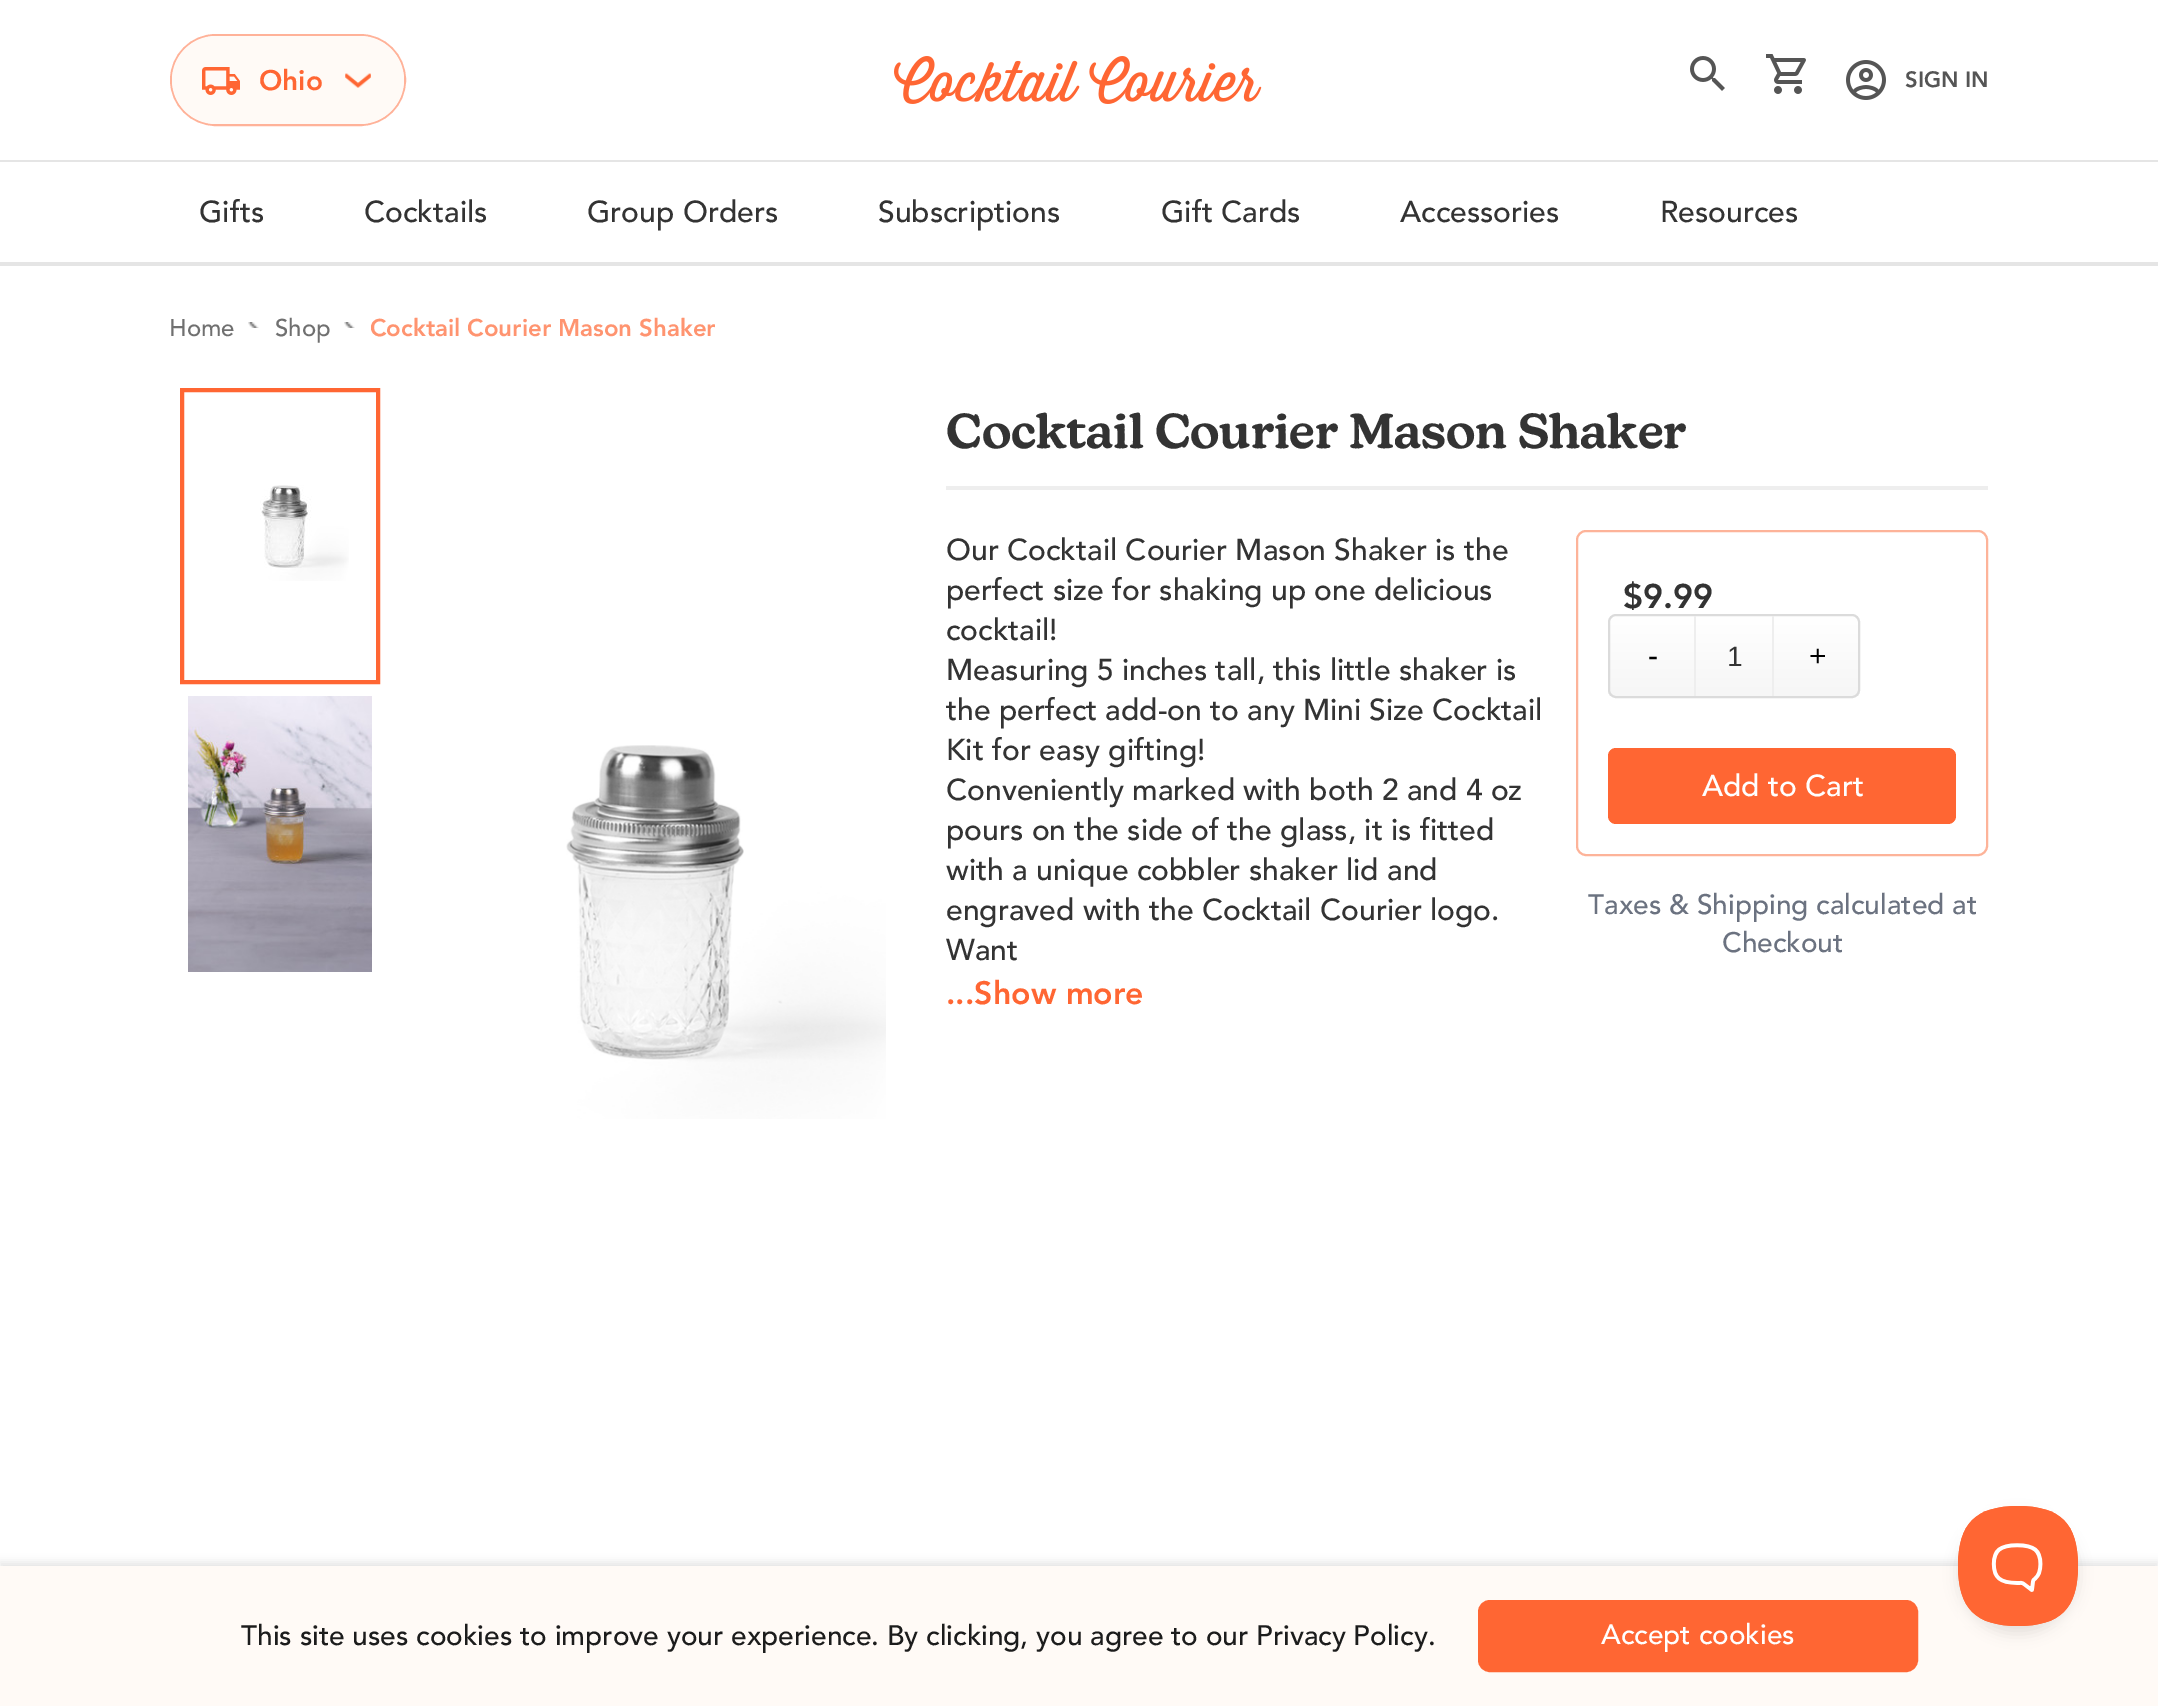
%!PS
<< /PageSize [2158 1706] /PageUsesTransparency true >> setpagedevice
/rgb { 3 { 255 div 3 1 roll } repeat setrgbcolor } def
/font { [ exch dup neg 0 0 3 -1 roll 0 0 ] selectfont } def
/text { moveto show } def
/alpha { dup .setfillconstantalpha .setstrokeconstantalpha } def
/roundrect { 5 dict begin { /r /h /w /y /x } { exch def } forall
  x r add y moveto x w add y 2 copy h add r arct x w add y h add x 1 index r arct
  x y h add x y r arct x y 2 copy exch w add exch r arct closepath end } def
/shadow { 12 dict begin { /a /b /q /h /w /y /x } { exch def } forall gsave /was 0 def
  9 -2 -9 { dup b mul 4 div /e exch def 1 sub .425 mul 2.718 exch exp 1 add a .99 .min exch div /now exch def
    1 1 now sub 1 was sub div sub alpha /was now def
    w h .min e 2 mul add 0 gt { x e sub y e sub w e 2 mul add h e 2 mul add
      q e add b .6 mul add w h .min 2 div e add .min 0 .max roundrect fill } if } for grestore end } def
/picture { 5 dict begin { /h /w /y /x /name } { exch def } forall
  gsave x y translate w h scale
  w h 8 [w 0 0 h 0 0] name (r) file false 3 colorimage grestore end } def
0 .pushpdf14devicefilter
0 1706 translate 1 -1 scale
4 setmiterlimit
255 255 255 rgb
0 0 2158 1706 rectfill
229 229 229 rgb
0 262 2158 4 rectfill
255 178 153 rgb
2 setlinewidth
171 35 234 90 45 roundrect stroke
255 250 246 rgb
172 36 232 88 44 roundrect fill
(img_01.rgb) 202 67 38 28 picture
(img_02.rgb) 345 73 26 15 picture
(img_03.rgb) 894 56 368 48 picture
(img_04.rgb) 1690 56 35 35 picture
(img_05.rgb) 1766 54 40 40 picture
(img_06.rgb) 1846 60 40 40 picture
229 229 229 rgb
0 160 2158 2 rectfill
(img_07.rgb) 248 322 11 6 picture
(img_07.rgb) 344 322 11 6 picture
255 102 51 rgb
4 setlinewidth
182 390 196 292 rectstroke
(img_08.rgb) 260 485 89 96 picture
(img_09.rgb) 188 696 184 276 picture
(img_10.rgb) 566 745 320 374 picture
238 238 238 rgb
946 486 1042 4 rectfill
253 179 153 rgb
2 setlinewidth
1577 531 410 324 9 roundrect stroke
255 102 51 rgb
1608 748 348 76 8 roundrect fill
204 204 204 rgb
0 1562 2158 140 0 4 0.5 shadow
255 250 246 rgb
0 1566 2158 140 rectfill
255 102 51 rgb
1480 1602 436 68 10 roundrect gsave fill grestore
4 setlinewidth
stroke
0 0 0 rgb
1958 1514 120 120 60 7 0.1 shadow
(img_11.rgb) 1958 1506 120 120 picture
/Avenir-Black 28 font
255 102 51 rgb
(Ohio) 259 90 text
/Avenir-Black 22 font
85 85 85 rgb
(SIGN IN) 1905 87 text
/Avenir-Medium 30 font
51 51 51 rgb
(Gifts) 199 222 text
(Cocktails) 364 222 text
(Group Orders) 587 222 text
(Subscriptions) 878 222 text
(Gift Cards) 1161 222 text
(Accessories) 1400 222 text
(Resources) 1660 222 text
/Avenir-Medium 24 font
112 112 112 rgb
(Home) 169 336 text
(Shop) 275 336 text
/Avenir-Black 24 font
255 148 112 rgb
(Cocktail Courier Mason Shaker) 370 336 text
/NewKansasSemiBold-SemiBold 48 font
51 51 51 rgb
(Cocktail Courier Mason Shaker) 946 448 text
/Avenir-Medium 30 font
(Our Cocktail Courier Mason Shaker is the) 946 560 text
(perfect size for shaking up one delicious) 946 600 text
(cocktail!) 946 640 text
(Measuring 5 inches tall, this little shaker is) 946 680 text
(the perfect add-on to any Mini Size Cocktail) 946 720 text
(Kit for easy gifting!) 946 760 text
(Conveniently marked with both 2 and 4 oz) 946 800 text
(pours on the side of the glass, it is fitted) 946 840 text
(with a unique cobbler shaker lid and) 946 880 text
(engraved with the Cocktail Courier logo.) 946 920 text
(Want) 946 960 text
/Avenir-Black 32 font
255 102 51 rgb
(...Show more) 946 1004 text
/Avenir-Black 34 font
51 51 51 rgb
($9.99) 1623 608 text
255 255 255 rgb
1606 612 256 88 10 roundrect stroke
gsave
1608 614 252 84 8 roundrect clip newpath
gsave 1608 616 moveto 252 0 rlineto 0 80 rlineto -252 0 rlineto closepath clip newpath
<< /ShadingType 2 /ColorSpace /DeviceRGB /Coords [1734 616 1734 696] /Extend [true true] /Function << /FunctionType 2 /Domain [0 1] /C0 [1 1 1] /C1 [0.965 0.965 0.965] /N 1 >> >> shfill grestore
grestore
219 219 219 rgb
2 setlinewidth
1609 615 250 82 7 roundrect stroke
/LiberationSans-Regular 30 font
0 0 0 rgb
(-) 1648 666 text
238 238 238 rgb
1772 616 2 80 rectfill
1694 616 2 80 rectfill
/LiberationSans-Regular 28 font
51 51 51 rgb
(1) 1727 666 text
/LiberationSans-Regular 30 font
0 0 0 rgb
(+) 1809 666 text
/Avenir-Medium 30 font
255 255 255 rgb
(Add to Cart) 1702 796 text
/Avenir-Medium 28 font
107 114 128 rgb
(Taxes & Shipping calculated at) 1588 914 text
(Checkout) 1722 952 text
28 28 28 rgb
(This site uses cookies to improve your experience. By clicking, you agree to our Privacy Policy.) 241 1645 text
255 255 255 rgb
(Accept cookies) 1601 1644 text
.poppdf14devicefilter showpage
